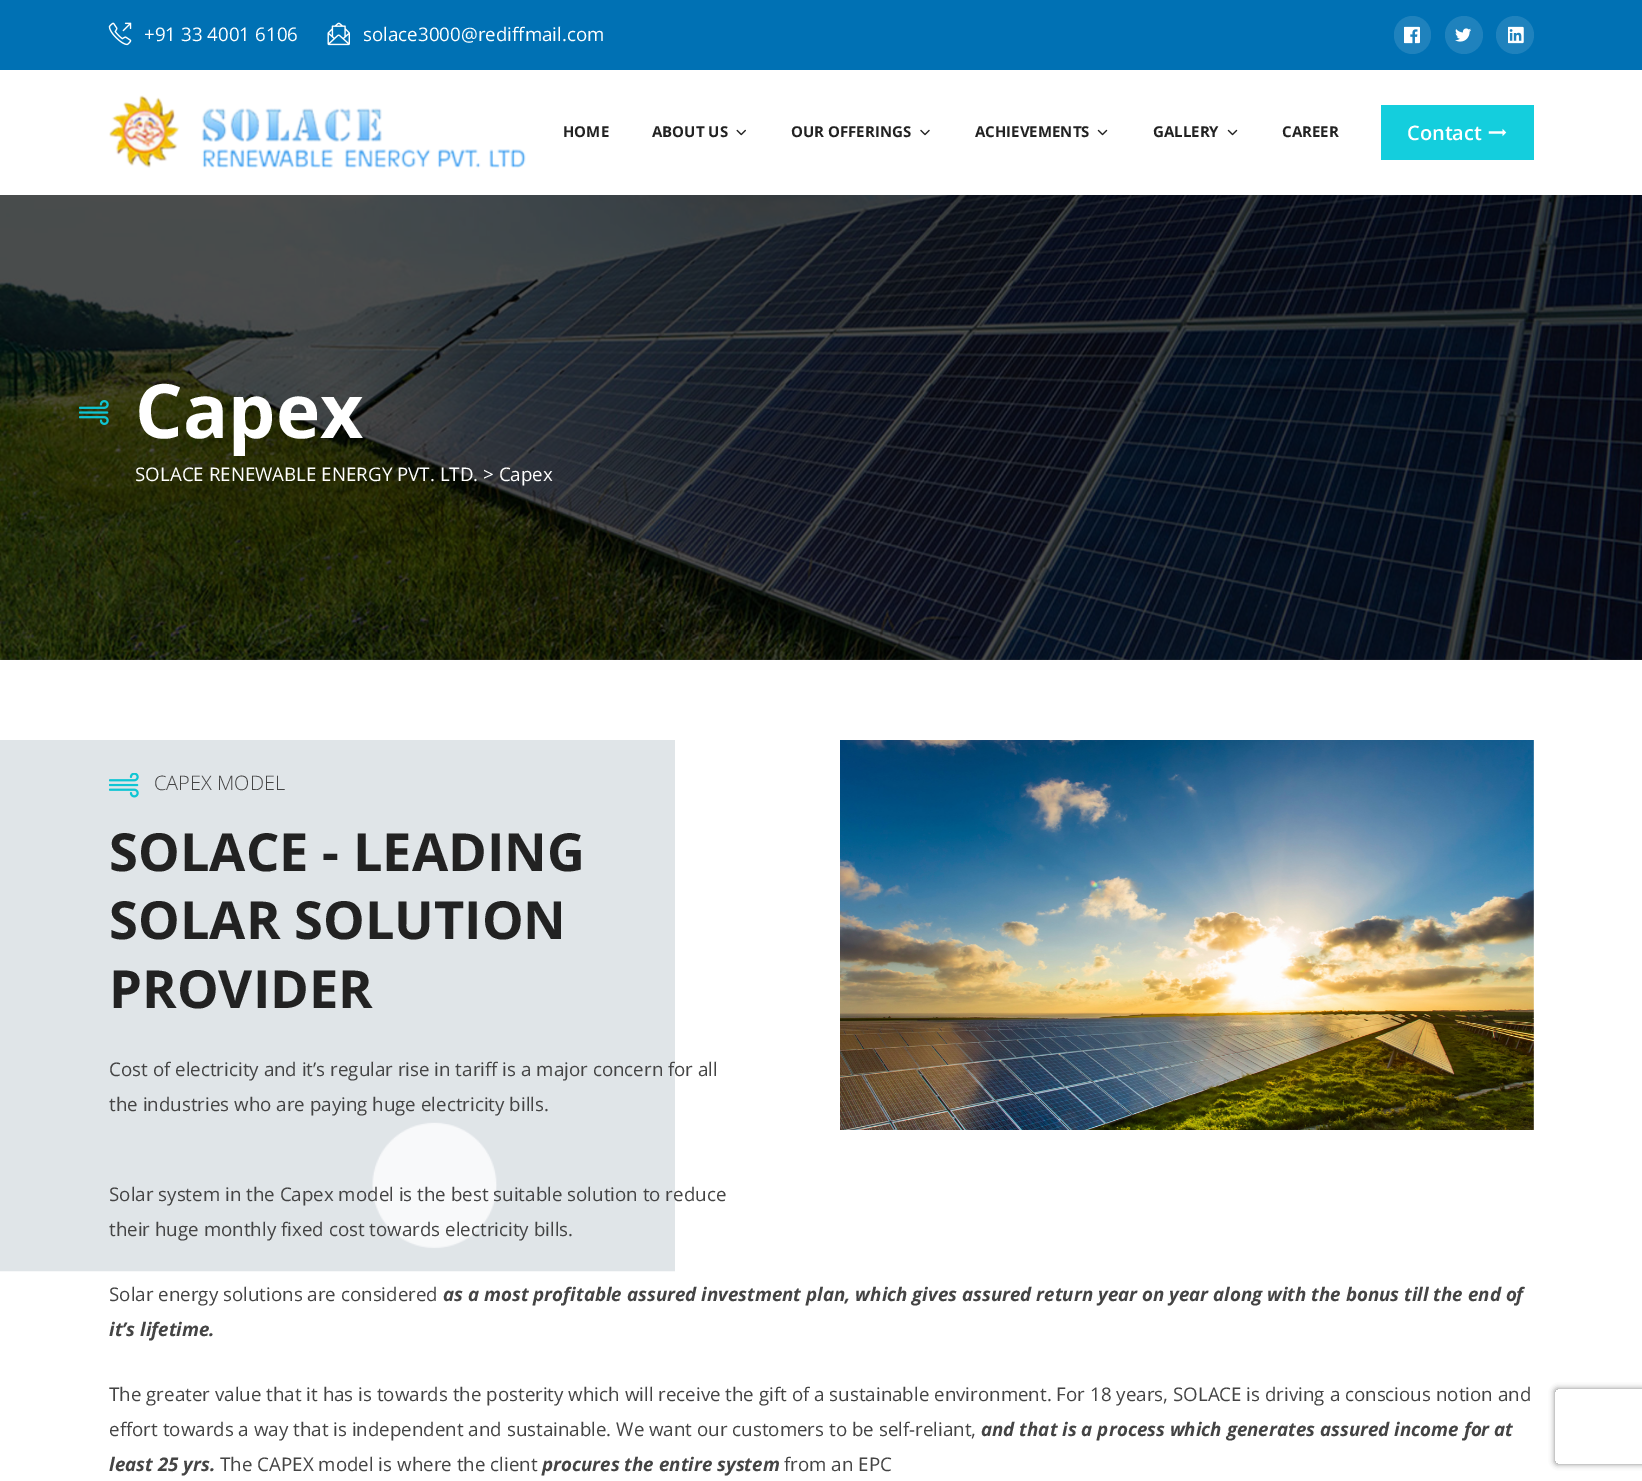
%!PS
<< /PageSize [1642 1481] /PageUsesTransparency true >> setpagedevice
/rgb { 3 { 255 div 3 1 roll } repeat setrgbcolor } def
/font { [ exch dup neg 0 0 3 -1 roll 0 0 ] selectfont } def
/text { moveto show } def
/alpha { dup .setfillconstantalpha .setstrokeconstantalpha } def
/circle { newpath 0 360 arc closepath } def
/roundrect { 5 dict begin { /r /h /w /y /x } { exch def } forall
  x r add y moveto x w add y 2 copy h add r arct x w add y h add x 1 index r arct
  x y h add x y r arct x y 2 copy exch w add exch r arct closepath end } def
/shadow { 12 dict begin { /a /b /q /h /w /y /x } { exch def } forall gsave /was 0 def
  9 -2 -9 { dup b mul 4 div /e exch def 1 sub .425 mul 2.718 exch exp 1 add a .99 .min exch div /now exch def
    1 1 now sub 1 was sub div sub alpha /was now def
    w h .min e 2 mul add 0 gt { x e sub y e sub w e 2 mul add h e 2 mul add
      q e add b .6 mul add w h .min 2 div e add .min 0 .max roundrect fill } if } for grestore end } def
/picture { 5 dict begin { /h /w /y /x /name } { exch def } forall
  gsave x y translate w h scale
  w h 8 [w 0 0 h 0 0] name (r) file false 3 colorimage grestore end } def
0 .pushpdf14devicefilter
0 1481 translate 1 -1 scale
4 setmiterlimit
255 255 255 rgb
0 0 1642 1481 rectfill
0 113 180 rgb
0 0 1642 70 rectfill
(img_01.rgb) 108 22 24 24 picture
(img_02.rgb) 327 22 23 24 picture
31 130 189 rgb
1394 16 37 38 18.5 roundrect fill
(img_03.rgb) 1404 26 16 18 picture
1464 35 19 circle fill
(img_04.rgb) 1455 28 16 14 picture
1515 35 19 circle fill
(img_05.rgb) 1508 26 16 18 picture
(img_06.rgb) 109 95 417 73 picture
(img_07.rgb) 736 129 10 7 picture
(img_08.rgb) 920 129 10 7 picture
(img_09.rgb) 1097 129 11 7 picture
(img_09.rgb) 1227 129 11 7 picture
20 206 221 rgb
1381 105 153 55 rectfill
(img_10.rgb) 1488 128 19 9 picture
(img_11.rgb) 0 195 1642 465 picture
(img_12.rgb) 79 400 30 25 picture
(img_13.rgb) 0 740 675 532 picture
(img_14.rgb) 109 773 30 25 picture
(img_15.rgb) 840 740 694 390 picture
gsave
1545 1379 moveto 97 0 rlineto 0 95 rlineto -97 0 rlineto closepath 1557.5 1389 moveto 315 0 rlineto 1.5 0 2.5 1 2.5 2.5 rcurveto 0 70 rlineto 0 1.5 -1 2.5 -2.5 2.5 rcurveto -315 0 rlineto -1.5 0 -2.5 -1 -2.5 -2.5 rcurveto 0 -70 rlineto 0 -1.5 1 -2.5 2.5 -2.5 rcurveto closepath eoclip newpath
128 128 128 rgb
1555 1389 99 75 2.5 3 1 shadow
grestore
/OpenSans-Regular 18.75 font
255 255 255 rgb
(+91 33 4001 6106) 144 41 text
(solace3000@rediffmail.com) 363 41 text
/OpenSans-Bold 15 font
34 34 34 rgb
(HOME) 563 137 text
(ABOUT US) 652 137 text
(OUR OFFERINGS) 791 137 text
(ACHIEVEMENTS) 975 137 text
(GALLERY) 1153 137 text
(CAREER) 1282 137 text
/OpenSans-SemiBold 20 font
255 255 255 rgb
(Contact) 1407 140 text
/OpenSans-Bold 75 font
(Capex) 135 438 text
/OpenSans-Regular 18.75 font
(SOLACE RENEWABLE ENERGY PVT. LTD. > Capex) 135 481 text
/OpenSans-Light 20 font
68 68 68 rgb
(CAPEX MODEL) 154 790 text
/OpenSans-Bold 52.5 font
34 34 34 rgb
(SOLACE - LEADING) 109 871 text
(SOLAR SOLUTION) 109 939 text
(PROVIDER) 109 1008 text
/OpenSans-Regular 18.75 font
68 68 68 rgb
(Cost of electricity and it’s regular rise in tariff is a major concern for all) 109 1076 text
(the industries who are paying huge electricity bills.) 109 1111 text
(Solar system in the Capex model is the best suitable solution to reduce) 109 1201 text
(their huge monthly fixed cost towards electricity bills.) 109 1236 text
(Solar energy solutions are considered) 109 1301 text
/OpenSans-BoldItalic 18.75 font
(as a most profitable assured investment plan, which gives assured return year on year along with the bonus till the end of) 443 1301 text
(it’s lifetime.) 109 1336 text
/OpenSans-Regular 18.75 font
(The greater value that it has is towards the posterity which will receive the gift of a sustainable environment. For 18 years, SOLACE is driving a conscious notion and) 109 1401 text
(effort towards a way that is independent and sustainable. We want our customers to be self-reliant,) 109 1436 text
/OpenSans-BoldItalic 18.75 font
(and that is a process which generates assured income for at) 981 1436 text
(least 25 yrs.) 109 1471 text
/OpenSans-Regular 18.75 font
(The CAPEX model is where the client) 220 1471 text
/OpenSans-BoldItalic 18.75 font
(procures the entire system) 542 1471 text
/OpenSans-Regular 18.75 font
(from an EPC) 784 1471 text
.poppdf14devicefilter showpage
